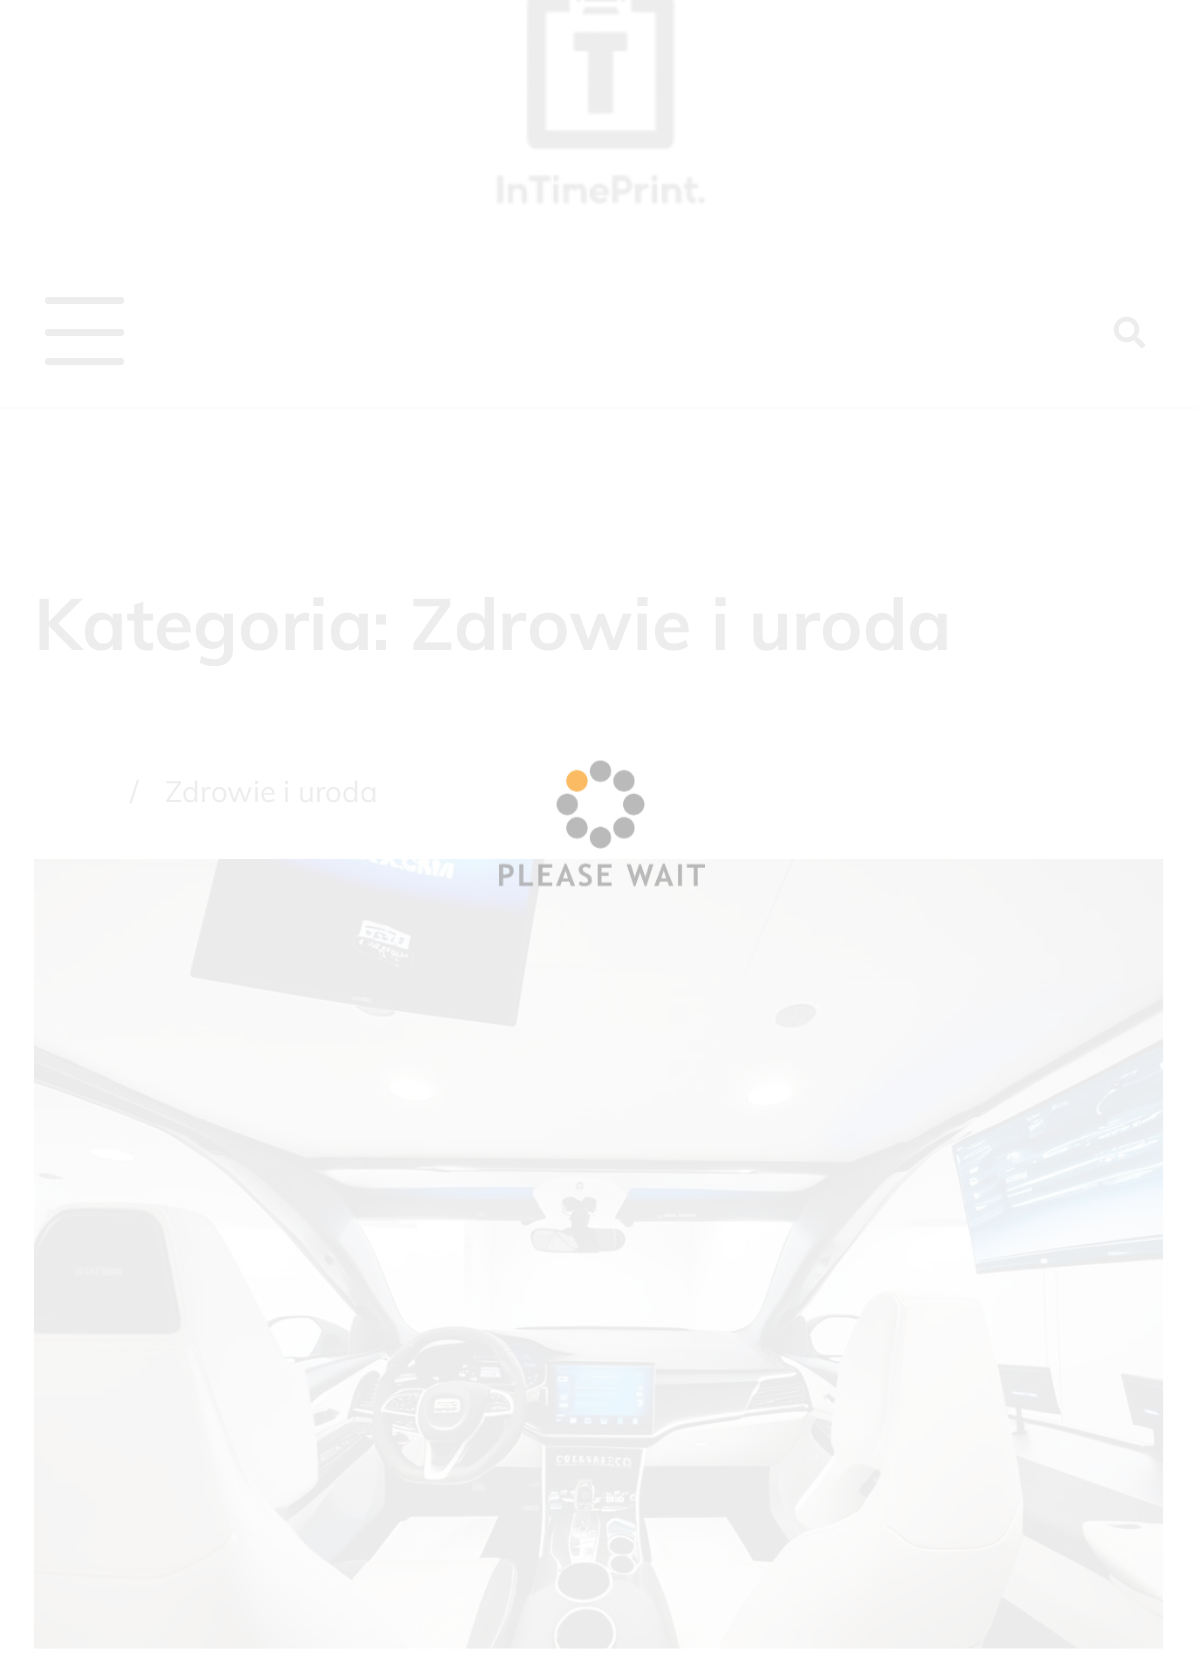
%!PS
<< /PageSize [1197 1673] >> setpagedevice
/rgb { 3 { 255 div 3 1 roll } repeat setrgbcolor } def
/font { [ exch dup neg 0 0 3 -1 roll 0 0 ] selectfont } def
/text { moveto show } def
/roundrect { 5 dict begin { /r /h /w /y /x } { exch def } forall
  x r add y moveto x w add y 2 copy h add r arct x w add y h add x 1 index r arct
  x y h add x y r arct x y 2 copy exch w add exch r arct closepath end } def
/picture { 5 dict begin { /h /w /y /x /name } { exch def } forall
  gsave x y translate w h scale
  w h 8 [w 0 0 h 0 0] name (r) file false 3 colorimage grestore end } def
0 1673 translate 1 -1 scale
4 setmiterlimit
255 255 255 rgb
0 0 1197 1673 rectfill
(img_01.rgb) 494 0 213 205 picture
252 252 252 rgb
0 407 1197 2 rectfill
237 237 237 rgb
45 297 79 7 3.5 roundrect fill
45 329 79 7 3.5 roundrect fill
45 358 79 7 3.5 roundrect fill
(img_02.rgb) 1113 316 33 33 picture
(img_03.rgb) 33 859 1131 790 picture
(img_04.rgb) 499 759 206 128 picture
/Muli-Bold 72 font
(Kategoria: Zdrowie i uroda) 34 650 text
/Muli-Regular 29.25 font
(/) 130 802 text
(Zdrowie i uroda) 165 802 text
showpage
